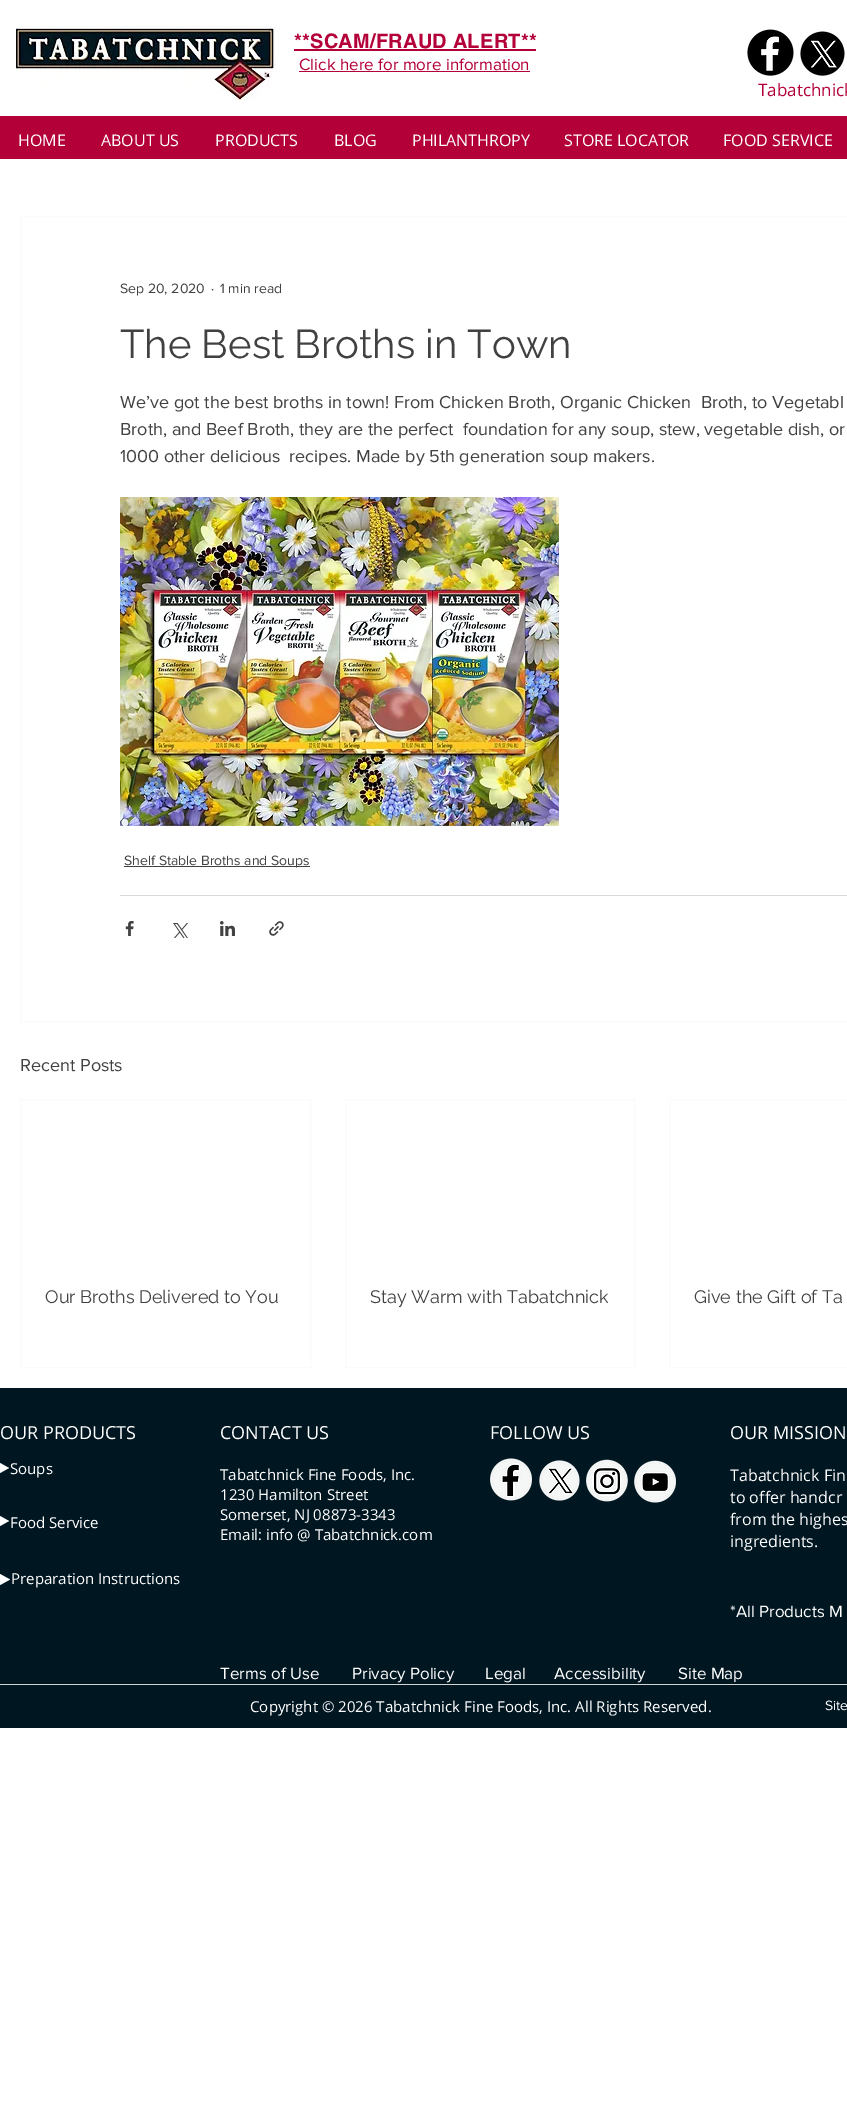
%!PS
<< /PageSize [847 2123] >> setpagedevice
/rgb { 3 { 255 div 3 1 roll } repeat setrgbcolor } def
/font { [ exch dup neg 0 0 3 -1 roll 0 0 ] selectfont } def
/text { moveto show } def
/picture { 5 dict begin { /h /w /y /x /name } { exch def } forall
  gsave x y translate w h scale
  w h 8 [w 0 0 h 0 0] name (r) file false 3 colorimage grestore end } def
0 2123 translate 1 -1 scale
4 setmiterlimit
255 255 255 rgb
0 0 847 2123 rectfill
(img_01.rgb) 16 26 260 74 picture
179 0 56 rgb
294 49 242 2 rectfill
(img_02.rgb) 747 29 47 47 picture
(img_03.rgb) 800 31 45 45 picture
299 71 231 1 rectfill
0 116 847 43 rectfill
251 251 251 rgb
20.5 216.5 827 805 rectstroke
(img_04.rgb) 120 497 439 329 picture
65 65 65 rgb
124 866 186 1 rectfill
217 217 217 rgb
120 895 727 1 rectfill
(img_05.rgb) 125 921 9 15 picture
(img_06.rgb) 173 923 15 15 picture
(img_07.rgb) 220 921 15 15 picture
(img_08.rgb) 269 921 15 15 picture
251 251 251 rgb
20.5 1099.5 290 268 rectstroke
345.5 1099.5 289 268 rectstroke
669.5 1099.5 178 268 rectstroke
0 22 33 rgb
0 1388 847 340 rectfill
255 255 255 rgb
0 1463 moveto 9 5 rlineto -9 5 rlineto closepath fill
(img_09.rgb) 490 1458 42 43 picture
(img_10.rgb) 539 1460 41 41 picture
(img_11.rgb) 586 1459 42 43 picture
(img_12.rgb) 634 1460 42 43 picture
0 1516 moveto 9 5 rlineto -9 5 rlineto closepath fill
0 1574 moveto 10 5.5 rlineto -10 5.5 rlineto closepath fill
212 212 210 rgb
0 1684 847 1 rectfill
/helvetica-Bold 20 font
179 0 56 rgb
294 48 moveto 0.25 0 (**SCAM/FRAUD ALERT**) ashow
/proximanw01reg-Regular 17 font
(Click here for more information) 299 70 text
/OpenSans-Regular 17 font
(Tabatchnick) 758 96 text
/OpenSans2-Regular 16 font
255 255 255 rgb
(HOME) 18 146 text
(ABOUT US) 101 146 text
(PRODUCTS) 215 146 text
(BLOG) 334 146 text
(PHILANTHROPY) 412 146 text
(STORE LOCATOR) 564 146 text
(FOOD SERVICE) 723 146 text
/proximanw01reg-Regular 14 font
65 65 65 rgb
(Sep 20, 2020) 120 293 text
(·) 211 293 text
(1 min read) 220 293 text
/Raleway-Regular 40 font
(The Best Broths in Town) 120 358 text
/proximanw01reg-Regular 18 font
(We’ve got the best broths in town! From Chicken Broth, Organic Chicken  Broth, to Vegetabl) 120 408 text
(Broth, and Beef Broth, they are the perfect  foundation for any soup, stew, vegetable dish, or) 120 435 text
(1000 other delicious  recipes. Made by 5th generation soup makers.) 120 462 text
/proximanw01reg-Regular 14 font
(Shelf Stable Broths and Soups) 124 865 text
/proximanw01reg-Regular 18 font
(Recent Posts) 20 1071 text
/Raleway-Regular 18 font
(Our Broths Delivered to You) 45 1303 text
(Stay Warm with Tabatchnick) 370 1303 text
(Give the Gift of Ta) 694 1303 text
/OpenSans2-Regular 18 font
255 255 255 rgb
(OUR PRODUCTS) 0 1439 text
(CONTACT US) 220 1439 text
(FOLLOW US) 490 1439 text
(OUR MISSION) 730 1439 text
/OpenSans2-Regular 15 font
(Soups) 10 1474 text
(Tabatchnick Fine Foods, Inc.) 220 1480 text
(1230 Hamilton Street) 220 1500 text
(Somerset, NJ 08873-3343) 220 1520 text
(Email: info @ Tabatchnick.com) 220 1540 text
/OpenSans2-Regular 16 font
(Tabatchnick Fin) 730 1481 text
(to offer handcr) 730 1503 text
(from the highes) 730 1525 text
(ingredients.) 730 1547 text
/OpenSans2-Regular 15 font
(Food Service) 10 1528 text
(Preparation Instructions) 11 1584 text
/proximanw01reg-Regular 17 font
(*All Products M) 730 1617 text
(Terms of Use) 220 1679 text
(Privacy Policy) 352 1679 text
(Legal) 485 1679 text
(Accessibility) 554 1679 text
(Site Map) 678 1679 text
/OpenSans2-Regular 15 font
(Copyright © 2026 Tabatchnick Fine Foods, Inc. All Rights Reserved.) 250 1712 text
/proximanw01reg-Regular 14 font
(Site) 825 1710 text
showpage
